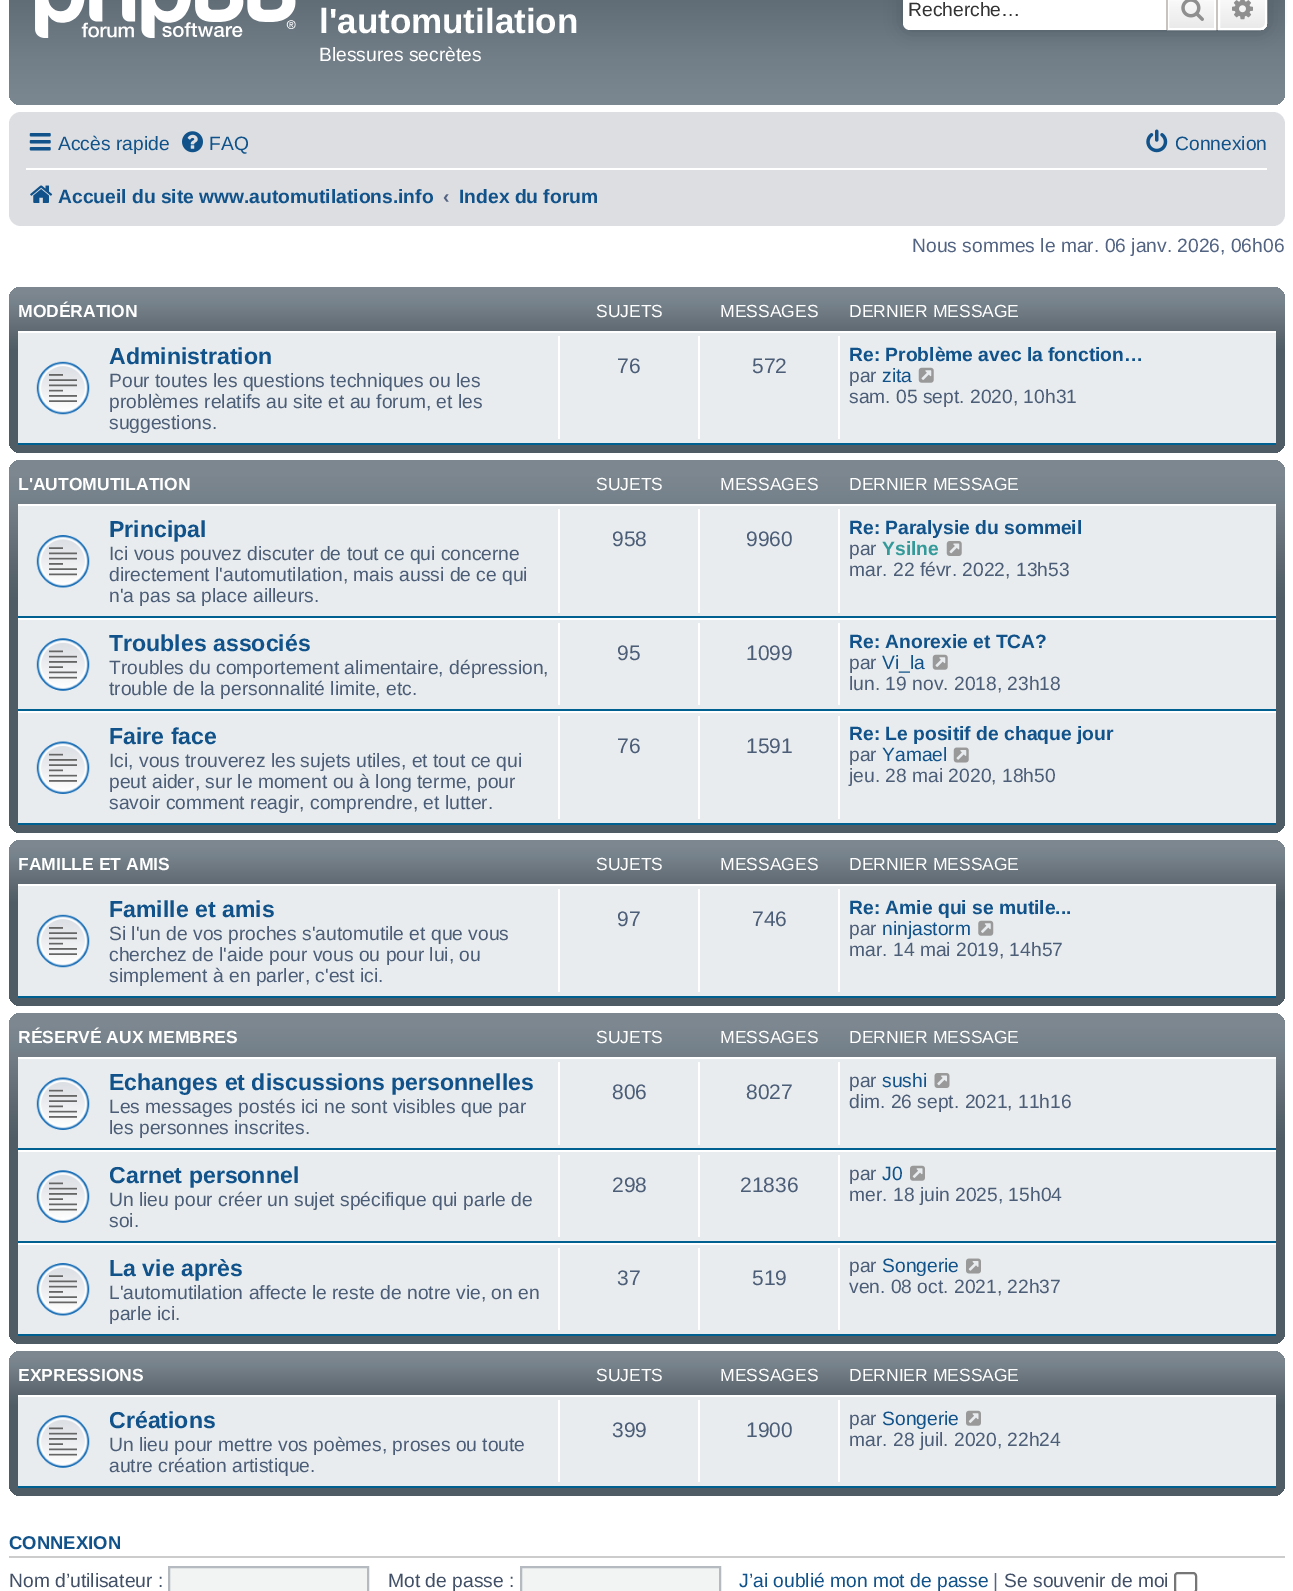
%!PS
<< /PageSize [1293 1591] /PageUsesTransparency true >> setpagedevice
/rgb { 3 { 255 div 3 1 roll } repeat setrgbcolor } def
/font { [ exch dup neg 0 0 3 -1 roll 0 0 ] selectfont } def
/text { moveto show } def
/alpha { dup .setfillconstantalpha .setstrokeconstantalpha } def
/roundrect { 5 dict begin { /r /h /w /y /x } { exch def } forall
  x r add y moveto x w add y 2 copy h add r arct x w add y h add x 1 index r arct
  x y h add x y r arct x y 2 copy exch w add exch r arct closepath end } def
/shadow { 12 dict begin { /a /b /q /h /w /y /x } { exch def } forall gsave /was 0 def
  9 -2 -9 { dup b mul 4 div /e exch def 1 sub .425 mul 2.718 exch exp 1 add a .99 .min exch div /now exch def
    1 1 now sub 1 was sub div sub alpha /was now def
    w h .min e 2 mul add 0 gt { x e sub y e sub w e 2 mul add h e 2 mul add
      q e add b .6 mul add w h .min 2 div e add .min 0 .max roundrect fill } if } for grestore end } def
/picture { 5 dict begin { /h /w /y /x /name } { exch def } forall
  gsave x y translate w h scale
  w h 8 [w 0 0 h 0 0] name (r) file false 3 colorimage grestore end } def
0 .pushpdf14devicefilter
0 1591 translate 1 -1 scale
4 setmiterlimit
255 255 255 rgb
0 0 1293 1591 rectfill
gsave 9 -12 1276 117 12 roundrect clip newpath
<< /ShadingType 2 /ColorSpace /DeviceRGB /Coords [647 -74 647 105] /Extend [true true] /Function << /FunctionType 3 /Domain [0 1] /Functions [<< /FunctionType 2 /Domain [0 1] /C0 [0.431 0.467 0.498] /C1 [0.314 0.361 0.396] /N 1 >> << /FunctionType 2 /Domain [0 1] /C0 [0.314 0.361 0.396] /C1 [0.337 0.384 0.42] /N 1 >> << /FunctionType 2 /Domain [0 1] /C0 [0.337 0.384 0.42] /C1 [0.451 0.498 0.533] /N 1 >> << /FunctionType 2 /Domain [0 1] /C0 [0.451 0.498 0.533] /C1 [0.486 0.533 0.569] /N 1 >>] /Bounds [0.01 0.2 0.75] /Encode [0 1 0 1 0 1 0 1] >> >> shfill grestore
(img_01.rgb) 35 0 261 38 picture
80 92 101 rgb
903 -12 364 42 7 9 1 shadow
255 255 255 rgb
910 -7 moveto 256 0 rlineto 0 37 rlineto -256 0 rlineto -4 0 -7 -3 -7 -7 rcurveto 0 -23 rlineto 0 -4 3 -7 7 -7 rcurveto closepath fill
gsave 1169 0 moveto 45 0 rlineto 0 28 rlineto -45 0 rlineto closepath clip newpath
<< /ShadingType 2 /ColorSpace /DeviceRGB /Coords [1192 -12 1192 30] /Extend [true true] /Function << /FunctionType 2 /Domain [0 1] /C0 [1 1 1] /C1 [0.914 0.914 0.914] /N 1 >> >> shfill grestore
2 setlinewidth
1168 -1 47 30 rectstroke
199 195 191 rgb
1216 0 2 30 rectfill
1166 0 2 30 rectfill
(img_02.rgb) 1181 0 23 21 picture
gsave 1218 -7 moveto 42 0 rlineto 4 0 7 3 7 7 rcurveto 0 23 rlineto 0 4 -3 7 -7 7 rcurveto -42 0 rlineto closepath clip newpath
<< /ShadingType 2 /ColorSpace /DeviceRGB /Coords [1243 -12 1243 30] /Extend [true true] /Function << /FunctionType 2 /Domain [0 1] /C0 [1 1 1] /C1 [0.914 0.914 0.914] /N 1 >> >> shfill grestore
255 255 255 rgb
1219 -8 moveto 41 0 rlineto 3.5 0 6 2.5 6 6 rcurveto 0 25 rlineto 0 3.5 -2.5 6 -6 6 rcurveto -41 0 rlineto closepath stroke
(img_03.rgb) 1232 0 21 20 picture
220 222 226 rgb
9 112 1276 114 12 roundrect fill
(img_04.rgb) 29 133 22 18 picture
(img_05.rgb) 182 131 21 22 picture
(img_06.rgb) 1146 129 22 24 picture
255 255 255 rgb
26 168 1241 2 rectfill
(img_07.rgb) 30 185 23 18 picture
gsave 9 287 1276 166 12 roundrect clip newpath
<< /ShadingType 2 /ColorSpace /DeviceRGB /Coords [647 287 647 453] /Extend [true true] /Function << /FunctionType 3 /Domain [0 1] /Functions [<< /FunctionType 2 /Domain [0 1] /C0 [0.486 0.533 0.569] /C1 [0.486 0.529 0.565] /N 1 >> << /FunctionType 2 /Domain [0 1] /C0 [0.486 0.529 0.565] /C1 [0.463 0.51 0.545] /N 1 >> << /FunctionType 2 /Domain [0 1] /C0 [0.463 0.51 0.545] /C1 [0.357 0.4 0.435] /N 1 >> << /FunctionType 2 /Domain [0 1] /C0 [0.357 0.4 0.435] /C1 [0.314 0.361 0.396] /N 1 >> << /FunctionType 2 /Domain [0 1] /C0 [0.314 0.361 0.396] /C1 [0.314 0.361 0.396] /N 1 >>] /Bounds [0.04 0.1 0.29 0.38] /Encode [0 1 0 1 0 1 0 1 0 1] >> >> shfill grestore
232 236 238 rgb
18 333 1258 110 rectfill
255 255 255 rgb
18 331 1258 2 rectfill
0 96 143 rgb
18 443 1258 2 rectfill
(img_08.rgb) 36 361 54 54 picture
255 255 255 rgb
558 336 2 103 rectfill
698 336 2 103 rectfill
838 336 2 103 rectfill
(img_09.rgb) 918 367 16 16 picture
gsave 9 460 1276 373 12 roundrect clip newpath
<< /ShadingType 2 /ColorSpace /DeviceRGB /Coords [647 460 647 833] /Extend [true true] /Function << /FunctionType 3 /Domain [0 1] /Functions [<< /FunctionType 2 /Domain [0 1] /C0 [0.486 0.533 0.569] /C1 [0.486 0.529 0.565] /N 1 >> << /FunctionType 2 /Domain [0 1] /C0 [0.486 0.529 0.565] /C1 [0.463 0.51 0.545] /N 1 >> << /FunctionType 2 /Domain [0 1] /C0 [0.463 0.51 0.545] /C1 [0.357 0.4 0.435] /N 1 >> << /FunctionType 2 /Domain [0 1] /C0 [0.357 0.4 0.435] /C1 [0.314 0.361 0.396] /N 1 >> << /FunctionType 2 /Domain [0 1] /C0 [0.314 0.361 0.396] /C1 [0.314 0.361 0.396] /N 1 >>] /Bounds [0.04 0.1 0.29 0.38] /Encode [0 1 0 1 0 1 0 1 0 1] >> >> shfill grestore
232 236 238 rgb
18 506 1258 110 rectfill
255 255 255 rgb
18 504 1258 2 rectfill
0 96 143 rgb
18 616 1258 2 rectfill
(img_10.rgb) 36 535 54 53 picture
255 255 255 rgb
558 509 2 104 rectfill
698 509 2 104 rectfill
838 509 2 104 rectfill
(img_11.rgb) 946 541 16 15 picture
232 236 238 rgb
18 620 1258 89 rectfill
255 255 255 rgb
18 618 1258 2 rectfill
0 96 143 rgb
18 709 1258 2 rectfill
(img_12.rgb) 36 638 54 53 picture
255 255 255 rgb
558 623 2 82 rectfill
698 623 2 82 rectfill
838 623 2 82 rectfill
(img_09.rgb) 932 654 16 16 picture
232 236 238 rgb
18 713 1258 110 rectfill
255 255 255 rgb
18 711 1258 2 rectfill
0 96 143 rgb
18 823 1258 2 rectfill
(img_13.rgb) 36 741 54 53 picture
255 255 255 rgb
558 716 2 103 rectfill
698 716 2 103 rectfill
838 716 2 103 rectfill
(img_14.rgb) 953 747 16 16 picture
gsave 9 840 1276 166 12 roundrect clip newpath
<< /ShadingType 2 /ColorSpace /DeviceRGB /Coords [647 840 647 1006] /Extend [true true] /Function << /FunctionType 3 /Domain [0 1] /Functions [<< /FunctionType 2 /Domain [0 1] /C0 [0.486 0.533 0.569] /C1 [0.486 0.529 0.565] /N 1 >> << /FunctionType 2 /Domain [0 1] /C0 [0.486 0.529 0.565] /C1 [0.463 0.51 0.545] /N 1 >> << /FunctionType 2 /Domain [0 1] /C0 [0.463 0.51 0.545] /C1 [0.357 0.4 0.435] /N 1 >> << /FunctionType 2 /Domain [0 1] /C0 [0.357 0.4 0.435] /C1 [0.314 0.361 0.396] /N 1 >> << /FunctionType 2 /Domain [0 1] /C0 [0.314 0.361 0.396] /C1 [0.314 0.361 0.396] /N 1 >>] /Bounds [0.04 0.1 0.29 0.38] /Encode [0 1 0 1 0 1 0 1 0 1] >> >> shfill grestore
232 236 238 rgb
18 886 1258 110 rectfill
255 255 255 rgb
18 884 1258 2 rectfill
0 96 143 rgb
18 996 1258 2 rectfill
(img_08.rgb) 36 914 54 54 picture
255 255 255 rgb
558 889 2 103 rectfill
698 889 2 103 rectfill
838 889 2 103 rectfill
(img_15.rgb) 978 920 16 16 picture
gsave 9 1013 1276 331 12 roundrect clip newpath
<< /ShadingType 2 /ColorSpace /DeviceRGB /Coords [647 1013 647 1344] /Extend [true true] /Function << /FunctionType 3 /Domain [0 1] /Functions [<< /FunctionType 2 /Domain [0 1] /C0 [0.486 0.533 0.569] /C1 [0.486 0.529 0.565] /N 1 >> << /FunctionType 2 /Domain [0 1] /C0 [0.486 0.529 0.565] /C1 [0.463 0.51 0.545] /N 1 >> << /FunctionType 2 /Domain [0 1] /C0 [0.463 0.51 0.545] /C1 [0.357 0.4 0.435] /N 1 >> << /FunctionType 2 /Domain [0 1] /C0 [0.357 0.4 0.435] /C1 [0.314 0.361 0.396] /N 1 >> << /FunctionType 2 /Domain [0 1] /C0 [0.314 0.361 0.396] /C1 [0.314 0.361 0.396] /N 1 >>] /Bounds [0.04 0.1 0.29 0.38] /Encode [0 1 0 1 0 1 0 1 0 1] >> >> shfill grestore
232 236 238 rgb
18 1059 1258 89 rectfill
255 255 255 rgb
18 1057 1258 2 rectfill
0 96 143 rgb
18 1148 1258 2 rectfill
(img_13.rgb) 36 1077 54 53 picture
255 255 255 rgb
558 1062 2 83 rectfill
698 1062 2 83 rectfill
838 1062 2 83 rectfill
(img_16.rgb) 934 1073 16 15 picture
232 236 238 rgb
18 1152 1258 89 rectfill
255 255 255 rgb
18 1150 1258 2 rectfill
0 96 143 rgb
18 1241 1258 2 rectfill
(img_12.rgb) 36 1170 54 53 picture
255 255 255 rgb
558 1155 2 82 rectfill
698 1155 2 82 rectfill
838 1155 2 82 rectfill
(img_17.rgb) 910 1165 15 16 picture
232 236 238 rgb
18 1245 1258 89 rectfill
255 255 255 rgb
18 1243 1258 2 rectfill
0 96 143 rgb
18 1334 1258 2 rectfill
(img_10.rgb) 36 1263 54 53 picture
255 255 255 rgb
558 1248 2 82 rectfill
698 1248 2 82 rectfill
838 1248 2 82 rectfill
(img_18.rgb) 966 1258 15 16 picture
gsave 9 1351 1276 145 12 roundrect clip newpath
<< /ShadingType 2 /ColorSpace /DeviceRGB /Coords [647 1351 647 1496] /Extend [true true] /Function << /FunctionType 3 /Domain [0 1] /Functions [<< /FunctionType 2 /Domain [0 1] /C0 [0.486 0.533 0.569] /C1 [0.486 0.529 0.565] /N 1 >> << /FunctionType 2 /Domain [0 1] /C0 [0.486 0.529 0.565] /C1 [0.463 0.51 0.545] /N 1 >> << /FunctionType 2 /Domain [0 1] /C0 [0.463 0.51 0.545] /C1 [0.357 0.4 0.435] /N 1 >> << /FunctionType 2 /Domain [0 1] /C0 [0.357 0.4 0.435] /C1 [0.314 0.361 0.396] /N 1 >> << /FunctionType 2 /Domain [0 1] /C0 [0.314 0.361 0.396] /C1 [0.314 0.361 0.396] /N 1 >>] /Bounds [0.04 0.1 0.29 0.38] /Encode [0 1 0 1 0 1 0 1 0 1] >> >> shfill grestore
232 236 238 rgb
18 1397 1258 89 rectfill
255 255 255 rgb
18 1395 1258 2 rectfill
0 96 143 rgb
18 1486 1258 2 rectfill
(img_12.rgb) 36 1415 54 53 picture
255 255 255 rgb
558 1400 2 82 rectfill
698 1400 2 82 rectfill
838 1400 2 82 rectfill
(img_17.rgb) 966 1410 15 16 picture
204 204 204 rgb
9 1556 1276 2 rectfill
242 243 243 rgb
169 1567 moveto 199 0 rlineto 0 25 rlineto -199 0 rlineto closepath gsave fill grestore
180 186 192 rgb
stroke
242 243 243 rgb
521 1567 moveto 199 0 rlineto 0 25 rlineto -199 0 rlineto closepath gsave fill grestore
180 186 192 rgb
stroke
118 118 118 rgb
1175 1573 21 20 3 roundrect stroke
/LiberationSans-Bold 35 font
255 255 255 rgb
(l'automutilation) 319 33 text
/LiberationSans-Regular 19.25 font
(Blessures secrètes) 319 61 text
51 51 51 rgb
(Recherche…) 908 16 text
16 82 137 rgb
(Accès rapide) 58 150 text
(FAQ) 209 150 text
(Connexion) 1175 150 text
/LiberationSans-Bold 19.25 font
(Accueil du site www.automutilations.info) 58 203 text
83 100 130 rgb
(‹) 443 203 text
16 82 137 rgb
(Index du forum) 459 203 text
/LiberationSans-Regular 19.25 font
83 100 130 rgb
(Nous sommes le mar. 06 janv. 2026, 06h06) 912 252 text
/LiberationSans-Bold 17.5 font
255 255 255 rgb
(MODÉRATION) 18 317 text
/LiberationSans-Regular 17.5 font
(SUJETS) 596 317 text
(MESSAGES) 720 317 text
(DERNIER MESSAGE) 849 317 text
/LiberationSans-Bold 23.1 font
16 82 137 rgb
(Administration) 109 364 text
/LiberationSans-Regular 19.25 font
76 93 119 rgb
(Pour toutes les questions techniques ou les) 109 387 text
(problèmes relatifs au site et au forum, et les) 109 408 text
(suggestions.) 109 429 text
/LiberationSans-Regular 21 font
(76) 617 373 text
(572) 752 373 text
/LiberationSans-Bold 19.25 font
16 82 137 rgb
(Re: Problème avec la fonction…) 849 361 text
/LiberationSans-Regular 19.25 font
76 93 119 rgb
(par) 849 382 text
16 82 137 rgb
(zita) 882 382 text
76 93 119 rgb
(sam. 05 sept. 2020, 10h31) 849 403 text
/LiberationSans-Bold 17.5 font
255 255 255 rgb
(L'AUTOMUTILATION) 18 490 text
/LiberationSans-Regular 17.5 font
(SUJETS) 596 490 text
(MESSAGES) 720 490 text
(DERNIER MESSAGE) 849 490 text
/LiberationSans-Bold 23.1 font
16 82 137 rgb
(Principal) 109 537 text
/LiberationSans-Regular 19.25 font
76 93 119 rgb
(Ici vous pouvez discuter de tout ce qui concerne) 109 560 text
(directement l'automutilation, mais aussi de ce qui) 109 581 text
(n'a pas sa place ailleurs.) 109 602 text
/LiberationSans-Regular 21 font
(958) 612 546 text
(9960) 746 546 text
/LiberationSans-Bold 19.25 font
16 82 137 rgb
(Re: Paralysie du sommeil) 849 534 text
/LiberationSans-Regular 19.25 font
76 93 119 rgb
(par) 849 555 text
/LiberationSans-Bold 19.25 font
51 153 153 rgb
(Ysilne) 882 555 text
/LiberationSans-Regular 19.25 font
76 93 119 rgb
(mar. 22 févr. 2022, 13h53) 849 576 text
/LiberationSans-Bold 23.1 font
16 82 137 rgb
(Troubles associés) 109 651 text
/LiberationSans-Regular 19.25 font
76 93 119 rgb
(Troubles du comportement alimentaire, dépression,) 109 674 text
(trouble de la personnalité limite, etc.) 109 695 text
/LiberationSans-Regular 21 font
(95) 617 660 text
(1099) 746 660 text
/LiberationSans-Bold 19.25 font
16 82 137 rgb
(Re: Anorexie et TCA?) 849 648 text
/LiberationSans-Regular 19.25 font
76 93 119 rgb
(par) 849 669 text
16 82 137 rgb
(Vi_la) 882 669 text
76 93 119 rgb
(lun. 19 nov. 2018, 23h18) 849 690 text
/LiberationSans-Bold 23.1 font
16 82 137 rgb
(Faire face) 109 744 text
/LiberationSans-Regular 19.25 font
76 93 119 rgb
(Ici, vous trouverez les sujets utiles, et tout ce qui) 109 767 text
(peut aider, sur le moment ou à long terme, pour) 109 788 text
(savoir comment reagir, comprendre, et lutter.) 109 809 text
/LiberationSans-Regular 21 font
(76) 617 753 text
(1591) 746 753 text
/LiberationSans-Bold 19.25 font
16 82 137 rgb
(Re: Le positif de chaque jour) 849 740 text
/LiberationSans-Regular 19.25 font
76 93 119 rgb
(par) 849 761 text
16 82 137 rgb
(Yamael) 882 761 text
76 93 119 rgb
(jeu. 28 mai 2020, 18h50) 849 782 text
/LiberationSans-Bold 17.5 font
255 255 255 rgb
(FAMILLE ET AMIS) 18 870 text
/LiberationSans-Regular 17.5 font
(SUJETS) 596 870 text
(MESSAGES) 720 870 text
(DERNIER MESSAGE) 849 870 text
/LiberationSans-Bold 23.1 font
16 82 137 rgb
(Famille et amis) 109 917 text
/LiberationSans-Regular 19.25 font
76 93 119 rgb
(Si l'un de vos proches s'automutile et que vous) 109 940 text
(cherchez de l'aide pour vous ou pour lui, ou) 109 961 text
(simplement à en parler, c'est ici.) 109 982 text
/LiberationSans-Regular 21 font
(97) 617 926 text
(746) 752 926 text
/LiberationSans-Bold 19.25 font
16 82 137 rgb
(Re: Amie qui se mutile...) 849 914 text
/LiberationSans-Regular 19.25 font
76 93 119 rgb
(par) 849 935 text
16 82 137 rgb
(ninjastorm) 882 935 text
76 93 119 rgb
(mar. 14 mai 2019, 14h57) 849 956 text
/LiberationSans-Bold 17.5 font
255 255 255 rgb
(RÉSERVÉ AUX MEMBRES) 18 1043 text
/LiberationSans-Regular 17.5 font
(SUJETS) 596 1043 text
(MESSAGES) 720 1043 text
(DERNIER MESSAGE) 849 1043 text
/LiberationSans-Bold 23.1 font
16 82 137 rgb
(Echanges et discussions personnelles) 109 1090 text
/LiberationSans-Regular 19.25 font
76 93 119 rgb
(Les messages postés ici ne sont visibles que par) 109 1113 text
(les personnes inscrites.) 109 1134 text
/LiberationSans-Regular 21 font
(806) 612 1099 text
(8027) 746 1099 text
/LiberationSans-Regular 19.25 font
(par) 849 1087 text
16 82 137 rgb
(sushi) 882 1087 text
76 93 119 rgb
(dim. 26 sept. 2021, 11h16) 849 1108 text
/LiberationSans-Bold 23.1 font
16 82 137 rgb
(Carnet personnel) 109 1183 text
/LiberationSans-Regular 19.25 font
76 93 119 rgb
(Un lieu pour créer un sujet spécifique qui parle de) 109 1206 text
(soi.) 109 1227 text
/LiberationSans-Regular 21 font
(298) 612 1192 text
(21836) 740 1192 text
/LiberationSans-Regular 19.25 font
(par) 849 1180 text
16 82 137 rgb
(J0) 882 1180 text
76 93 119 rgb
(mer. 18 juin 2025, 15h04) 849 1201 text
/LiberationSans-Bold 23.1 font
16 82 137 rgb
(La vie après) 109 1276 text
/LiberationSans-Regular 19.25 font
76 93 119 rgb
(L'automutilation affecte le reste de notre vie, on en) 109 1299 text
(parle ici.) 109 1320 text
/LiberationSans-Regular 21 font
(37) 617 1285 text
(519) 752 1285 text
/LiberationSans-Regular 19.25 font
(par) 849 1272 text
16 82 137 rgb
(Songerie) 882 1272 text
76 93 119 rgb
(ven. 08 oct. 2021, 22h37) 849 1293 text
/LiberationSans-Bold 17.5 font
255 255 255 rgb
(EXPRESSIONS) 18 1381 text
/LiberationSans-Regular 17.5 font
(SUJETS) 596 1381 text
(MESSAGES) 720 1381 text
(DERNIER MESSAGE) 849 1381 text
/LiberationSans-Bold 23.1 font
16 82 137 rgb
(Créations) 109 1428 text
/LiberationSans-Regular 19.25 font
76 93 119 rgb
(Un lieu pour mettre vos poèmes, proses ou toute) 109 1451 text
(autre création artistique.) 109 1472 text
/LiberationSans-Regular 21 font
(399) 612 1437 text
(1900) 746 1437 text
/LiberationSans-Regular 19.25 font
(par) 849 1425 text
16 82 137 rgb
(Songerie) 882 1425 text
76 93 119 rgb
(mar. 28 juil. 2020, 22h24) 849 1446 text
/LiberationSans-Bold 18.5 font
16 82 137 rgb
(CONNEXION) 9 1549 text
/LiberationSans-Regular 19.25 font
66 80 103 rgb
(Nom d’utilisateur :) 9 1587 text
(Mot de passe :) 388 1587 text
16 82 137 rgb
(J’ai oublié mon mot de passe) 739 1587 text
83 100 130 rgb
(|) 993 1587 text
66 80 103 rgb
(Se souvenir de moi) 1004 1587 text
.poppdf14devicefilter showpage
